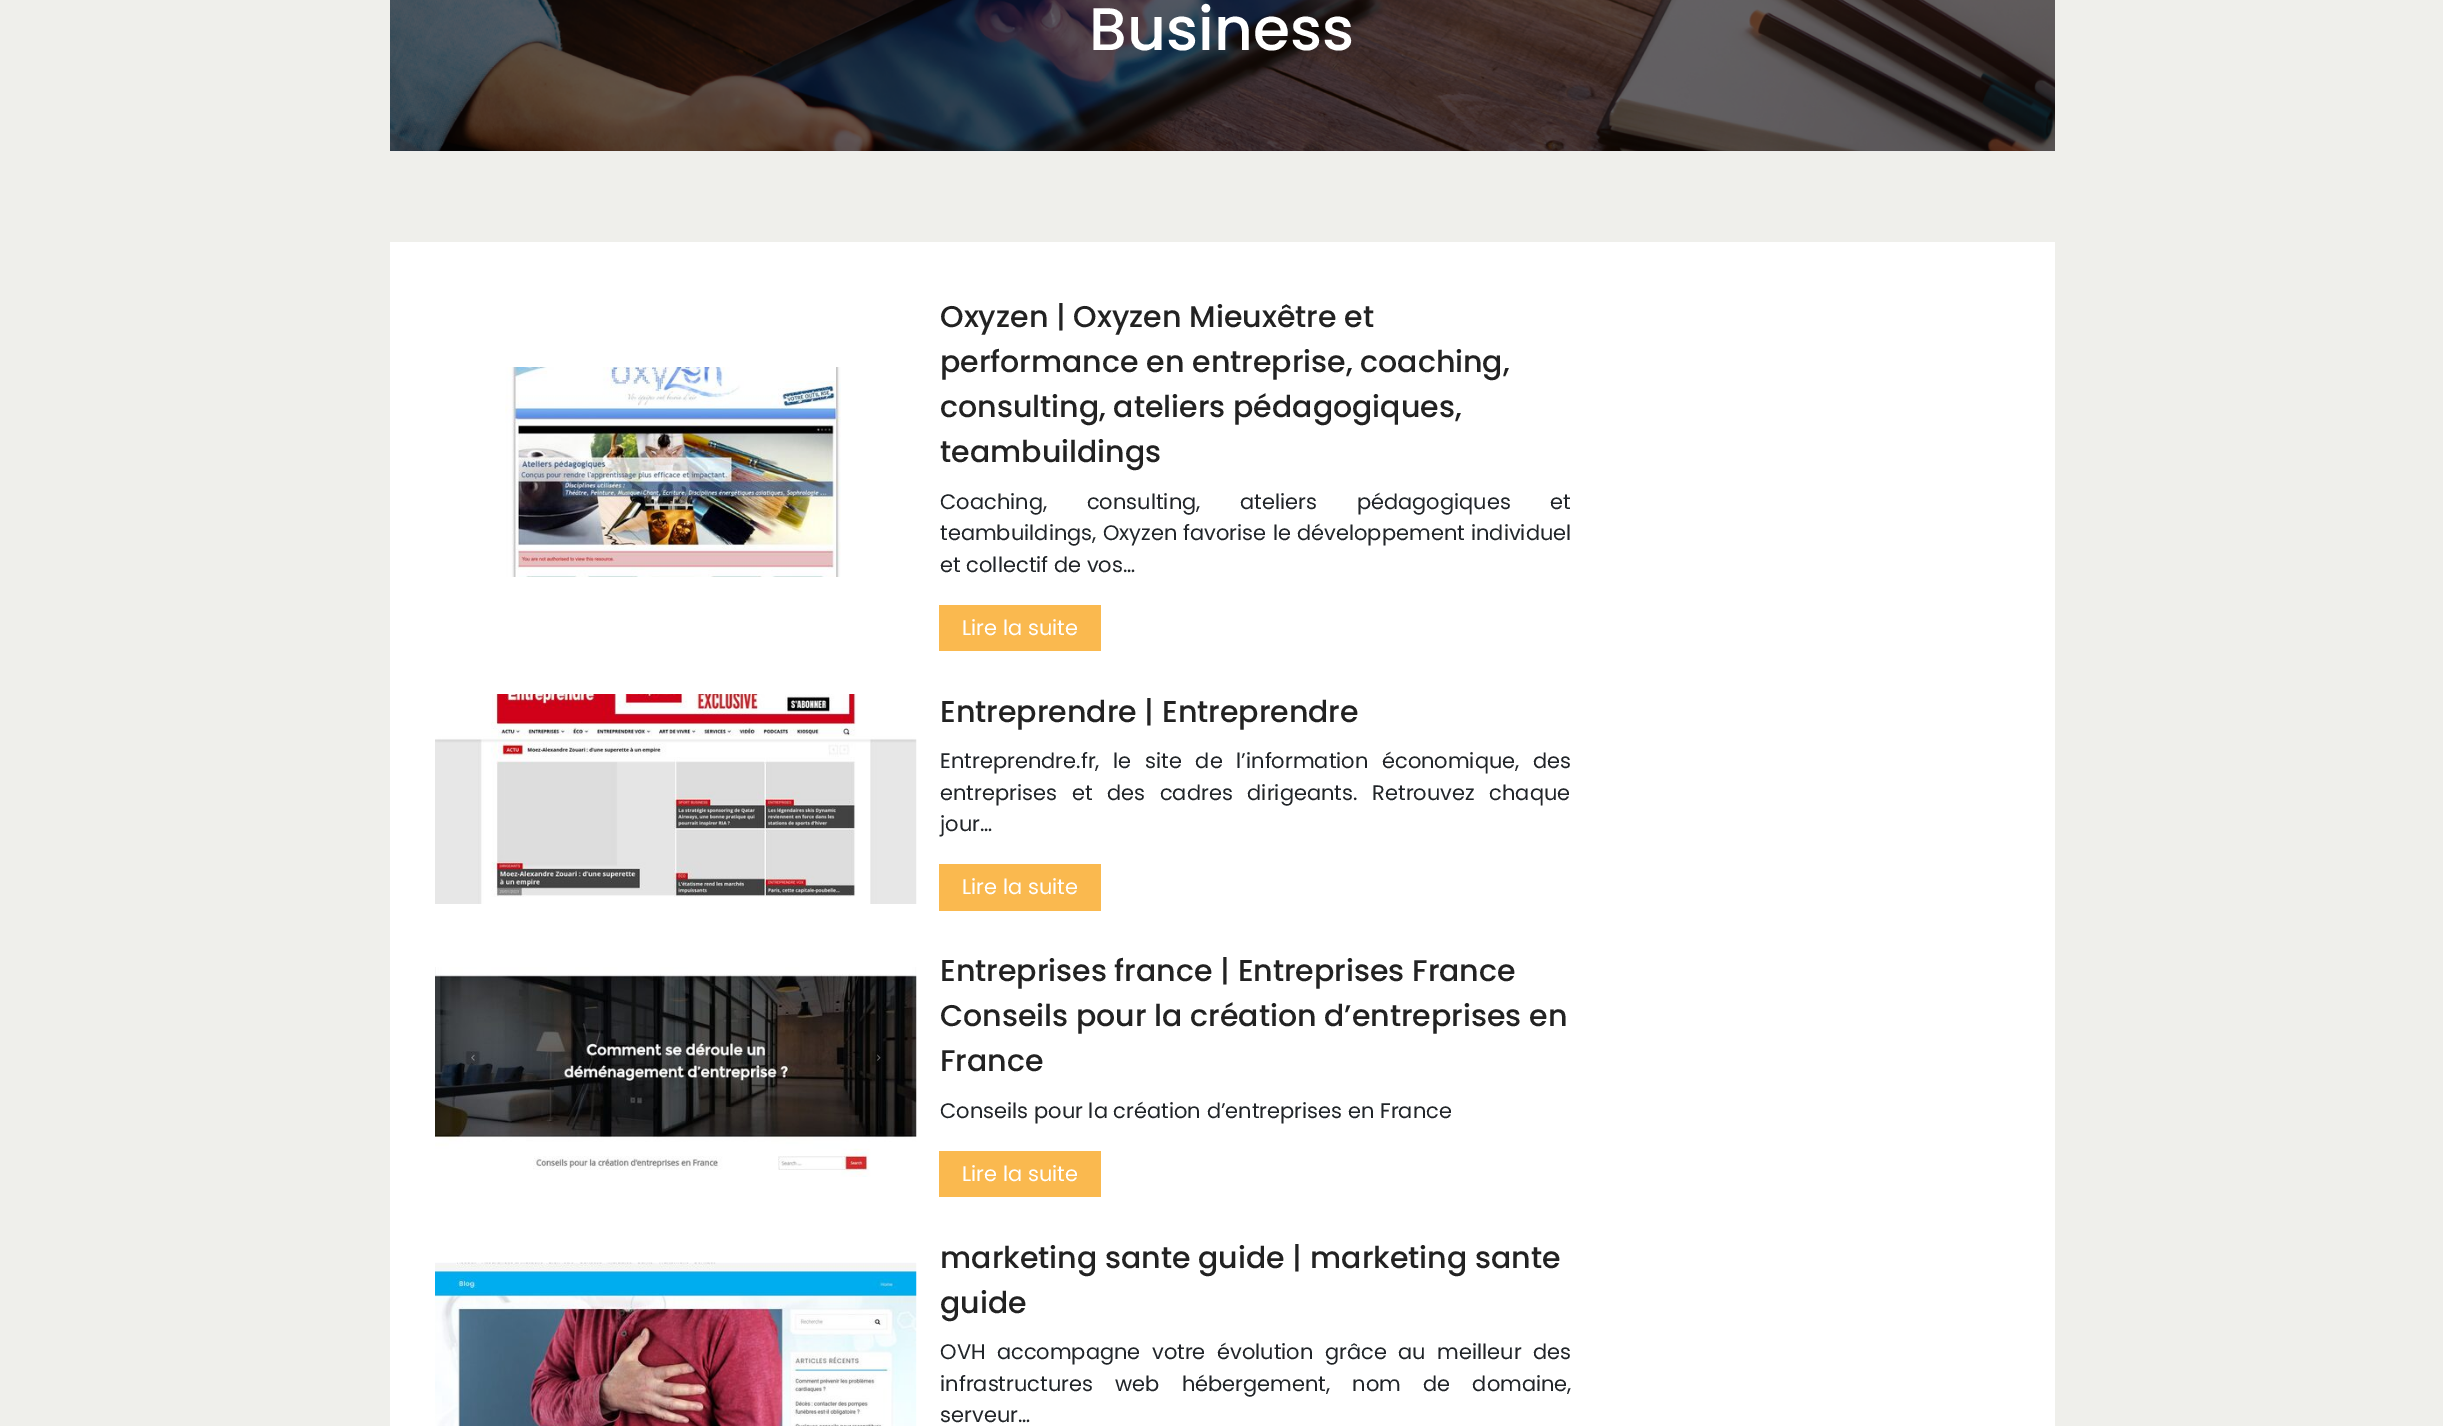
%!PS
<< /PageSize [2443 1426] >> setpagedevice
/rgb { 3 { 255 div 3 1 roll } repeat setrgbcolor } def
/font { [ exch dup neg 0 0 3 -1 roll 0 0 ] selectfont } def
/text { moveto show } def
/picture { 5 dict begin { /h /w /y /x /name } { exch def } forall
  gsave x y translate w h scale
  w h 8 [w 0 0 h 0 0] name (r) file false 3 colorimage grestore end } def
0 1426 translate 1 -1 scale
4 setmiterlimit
239 239 235 rgb
0 0 2443 1426 rectfill
238 238 238 rgb
390 151 1665 1 rectfill
(img_01.rgb) 390 0 1665 151 picture
255 255 255 rgb
390 242 1665 1184 rectfill
(img_02.rgb) 505 367 336 210 picture
250 185 79 rgb
939 605 162 46 rectfill
(img_03.rgb) 435 694 482 210 picture
939 864 162 47 rectfill
(img_04.rgb) 435 967 482 210 picture
939 1151 162 46 rectfill
(img_05.rgb) 435 1262 482 164 picture
/Poppins-Medium 60 font
255 255 255 rgb
(Business) 1089 50 text
/Poppins-Medium 30 font
34 34 34 rgb
(Oxyzen | Oxyzen Mieuxêtre et) 940 327 text
(performance en entreprise, coaching,) 940 372 text
(consulting, ateliers pédagogiques,) 940 417 text
(teambuildings) 940 462 text
/Poppins-Regular 21 font
33 37 41 rgb
940 509 moveto 34 0 32 (Coaching, consulting, ateliers pédagogiques et) widthshow
940 540 moveto 0.5 0 32 (teambuildings, Oxyzen favorise le développement individuel) widthshow
(et collectif de vos…) 940 572 text
255 255 255 rgb
(Lire la suite) 962 635 text
/Poppins-Medium 30 font
34 34 34 rgb
(Entreprendre | Entreprendre) 940 722 text
/Poppins-Regular 21 font
33 37 41 rgb
940 768 moveto 8 0 32 (Entreprendre.fr, le site de l’information économique, des) widthshow
940 800 moveto 9 0 32 (entreprises et des cadres dirigeants. Retrouvez chaque) widthshow
(jour…) 940 831 text
255 255 255 rgb
(Lire la suite) 962 894 text
/Poppins-Medium 30 font
34 34 34 rgb
(Entreprises france | Entreprises France) 940 981 text
(Conseils pour la création d’entreprises en) 940 1026 text
(France) 940 1071 text
/Poppins-Regular 21 font
33 37 41 rgb
(Conseils pour la création d’entreprises en France) 940 1118 text
255 255 255 rgb
(Lire la suite) 962 1181 text
/Poppins-Medium 30 font
34 34 34 rgb
(marketing sante guide | marketing sante) 940 1268 text
(guide) 940 1313 text
/Poppins-Regular 21 font
33 37 41 rgb
940 1359 moveto 5.75 0 32 (OVH accompagne votre évolution grâce au meilleur des) widthshow
940 1391 moveto 16.5 0 32 (infrastructures web hébergement, nom de domaine,) widthshow
(serveur…) 940 1422 text
showpage
